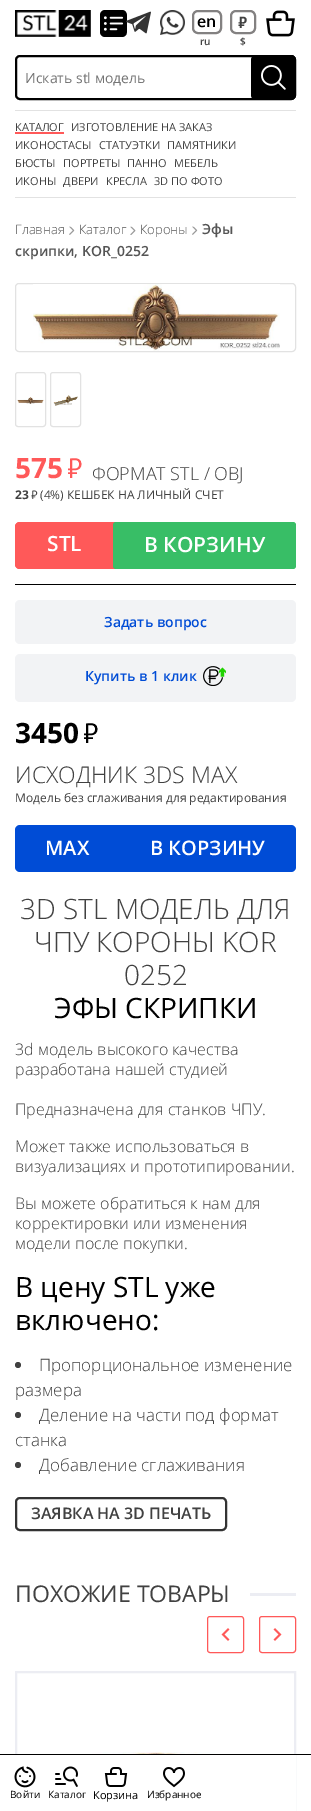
%!PS
<< /PageSize [311 1811] >> setpagedevice
/rgb { 3 { 255 div 3 1 roll } repeat setrgbcolor } def
/font { [ exch dup neg 0 0 3 -1 roll 0 0 ] selectfont } def
/text { moveto show } def
/circle { newpath 0 360 arc closepath } def
/roundrect { 5 dict begin { /r /h /w /y /x } { exch def } forall
  x r add y moveto x w add y 2 copy h add r arct x w add y h add x 1 index r arct
  x y h add x y r arct x y 2 copy exch w add exch r arct closepath end } def
/picture { 5 dict begin { /h /w /y /x /name } { exch def } forall
  gsave x y translate w h scale
  w h 8 [w 0 0 h 0 0] name (r) file false 3 colorimage grestore end } def
0 1811 translate 1 -1 scale
4 setmiterlimit
255 255 255 rgb
0 0 311 1811 rectfill
(img_01.rgb) 15 10 76 27 picture
0 0 0 rgb
100 10 27 27 5 roundrect fill
(img_02.rgb) 126 11 25 23 picture
(img_03.rgb) 160 10 25 25 picture
131 129 129 rgb
2 setlinewidth
193 11 28 22 5 roundrect stroke
231 11 24 22 5 roundrect stroke
(img_04.rgb) 266 10 29 27 picture
(img_05.rgb) 103 16 21 15 picture
0 0 0 rgb
16 56 279 43 4 roundrect stroke
251 55 45 45 5 roundrect fill
(img_06.rgb) 261 65 25 25 picture
226 226 226 rgb
15 110 281 1 rectfill
15 197 281 1 rectfill
255 89 89 rgb
15 132 49 2 rectfill
(img_07.rgb) 69 226 6 9 picture
(img_08.rgb) 130 226 6 9 picture
(img_09.rgb) 192 226 6 9 picture
226 226 226 rgb
1 setlinewidth
15.5 283.5 280 68 3.5 roundrect stroke
(img_10.rgb) 33 284 247 67 picture
15.5 372.5 30 54 2.5 roundrect stroke
(img_11.rgb) 17 397 27 7 picture
50.5 372.5 30 54 2.5 roundrect stroke
(img_12.rgb) 53 395 25 11 picture
0 0 0 rgb
15 584 281 1 rectfill
255 89 89 rgb
15 522 281 47 5 roundrect fill
20 522 moveto 90 0 rlineto 1.5 0 3 1.5 3 3 rcurveto 0 41 rlineto 0 1.5 -1.5 3 -3 3 rcurveto -90 0 rlineto -3 0 -5 -2 -5 -5 rcurveto 0 -37 rlineto 0 -3 2 -5 5 -5 rcurveto closepath fill
56 190 102 rgb
113 522 183 47 3 roundrect fill
242 243 245 rgb
15 600 281 44 5 roundrect fill
15 654 281 48 5 roundrect fill
(img_13.rgb) 203 666 23 20 picture
0 76 214 rgb
15 825 281 47 5 roundrect fill
65 65 65 rgb
18 1365 3 circle fill
18 1415 3 circle fill
18 1465 3 circle fill
51 51 51 rgb
2 setlinewidth
16 1498 210 32 4 roundrect stroke
236 237 243 rgb
250 1593 46 3 rectfill
(img_14.rgb) 221 1628 9 13 picture
255 89 89 rgb
1 setlinewidth
207.5 1616.5 36 36 2.5 roundrect stroke
(img_15.rgb) 273 1628 9 13 picture
259.5 1616.5 36 36 2.5 roundrect stroke
236 237 243 rgb
2 setlinewidth
16 1672 279 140 rectstroke
(img_16.rgb) 31 1752 245 2 picture
255 255 255 rgb
15 1755 281 56 rectfill
0 0 0 rgb
0 1754 311 1 rectfill
(img_17.rgb) 14 1766 22 22 picture
(img_18.rgb) 55 1766 23 21 picture
(img_19.rgb) 104 1767 24 20 picture
(img_20.rgb) 163 1767 22 21 picture
/OpenSans-SemiBold 16 font
(en) 197 27 text
/OpenSans-SemiBold 10 font
65 65 65 rgb
(ru) 200 45 text
/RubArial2-Regular 16 font
(руб) 236 28 text
/OpenSans-SemiBold 10 font
($) 240 45 text
/OpenSans-Regular 14 font
117 117 117 rgb
(Искать stl модель) 25 83 text
/OpenSans-Regular 11 font
65 65 65 rgb
(КАТАЛОГ) 15 131 text
(ИЗГОТОВЛЕНИЕ НА ЗАКАЗ) 71 131 text
(ИКОНОСТАСЫ) 15 149 text
(СТАТУЭТКИ) 99 149 text
(ПАМЯТНИКИ) 167 149 text
(БЮСТЫ) 15 167 text
(ПОРТРЕТЫ) 63 167 text
(ПАННО) 127 167 text
(МЕБЕЛЬ) 174 167 text
(ИКОНЫ) 15 185 text
(ДВЕРИ) 63 185 text
(КРЕСЛА) 106 185 text
(3D ПО ФОТО) 154 185 text
/OpenSans-Light 13 font
85 85 85 rgb
(Главная) 15 234 text
(Каталог) 79 234 text
(Короны) 140 234 text
/OpenSans-SemiBold 14 font
(Эфы) 202 234 text
(скрипки, KOR_0252) 15 256 text
/OpenSans-Bold 28 font
255 89 89 rgb
(575) 15 478 text
/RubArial-Regular 28 font
(руб) 63 478 text
/OpenSans-Light 18 font
65 65 65 rgb
(ФОРМАТ STL / OBJ) 92 480 text
/OpenSans-Bold 12 font
(23) 15 499 text
/RubArial-Regular 12 font
(руб) 29 499 text
/OpenSans-Regular 12 font
(\(4%\) КЕШБЕК НА ЛИЧНЫЙ СЧЕТ) 40 499 text
/OpenSans-SemiBold 21 font
255 255 255 rgb
(STL) 47 551 text
(В КОРЗИНУ) 144 552 text
/OpenSans-SemiBold 14 font
0 76 214 rgb
(Задать вопрос) 104 627 text
(Купить в 1 клик) 85 681 text
/OpenSans-Bold 28 font
0 0 0 rgb
(3450) 15 743 text
/RubArial-Regular 28 font
(руб) 79 743 text
/OpenSans-Light 23 font
65 65 65 rgb
(ИСХОДНИК 3DS MAX) 15 783 text
/OpenSans-Regular 12 font
(Модель без сглаживания для редактирования) 15 802 text
/OpenSans-SemiBold 20 font
255 255 255 rgb
(MAX) 45 855 text
(В КОРЗИНУ) 150 855 text
/OpenSans-Light 28 font
65 65 65 rgb
(3D STL МОДЕЛЬ ДЛЯ) 20 919 text
(ЧПУ КОРОНЫ KOR) 34 952 text
(0252) 124 985 text
/OpenSans-Regular 28 font
0 0 0 rgb
(ЭФЫ СКРИПКИ) 54 1018 text
/OpenSans-Light 16 font
65 65 65 rgb
(3d модель высокого качества) 15 1055 text
(разработана нашей студией) 15 1075 text
(Предназначена для станков ЧПУ.) 15 1115 text
(Может также использоваться в) 15 1152 text
(визуализациях и прототипировании.) 15 1172 text
(Вы можете обратиться к нам для) 15 1209 text
(корректировки или изменения) 15 1229 text
(модели после покупки.) 15 1249 text
/OpenSans-Regular 28 font
0 0 0 rgb
(В цену STL уже) 15 1297 text
(включено:) 15 1330 text
/OpenSans-Light 17 font
65 65 65 rgb
(Пропорциональное изменение) 39 1371 text
(размера) 15 1396 text
(Деление на части под формат) 39 1421 text
(станка) 15 1446 text
(Добавление сглаживания) 39 1471 text
/OpenSans-SemiBold 16 font
(ЗАЯВКА НА 3D ПЕЧАТЬ) 31 1519 text
/OpenSans-Regular 23 font
(ПОХОЖИЕ ТОВАРЫ) 15 1602 text
/OpenSans-Regular 10 font
0 0 0 rgb
(Войти) 10 1798 text
(Каталог) 48 1798 text
/OpenSans-Regular 11 font
(Корзина) 93 1799 text
/OpenSans-Regular 10 font
(Избранное) 147 1798 text
showpage
